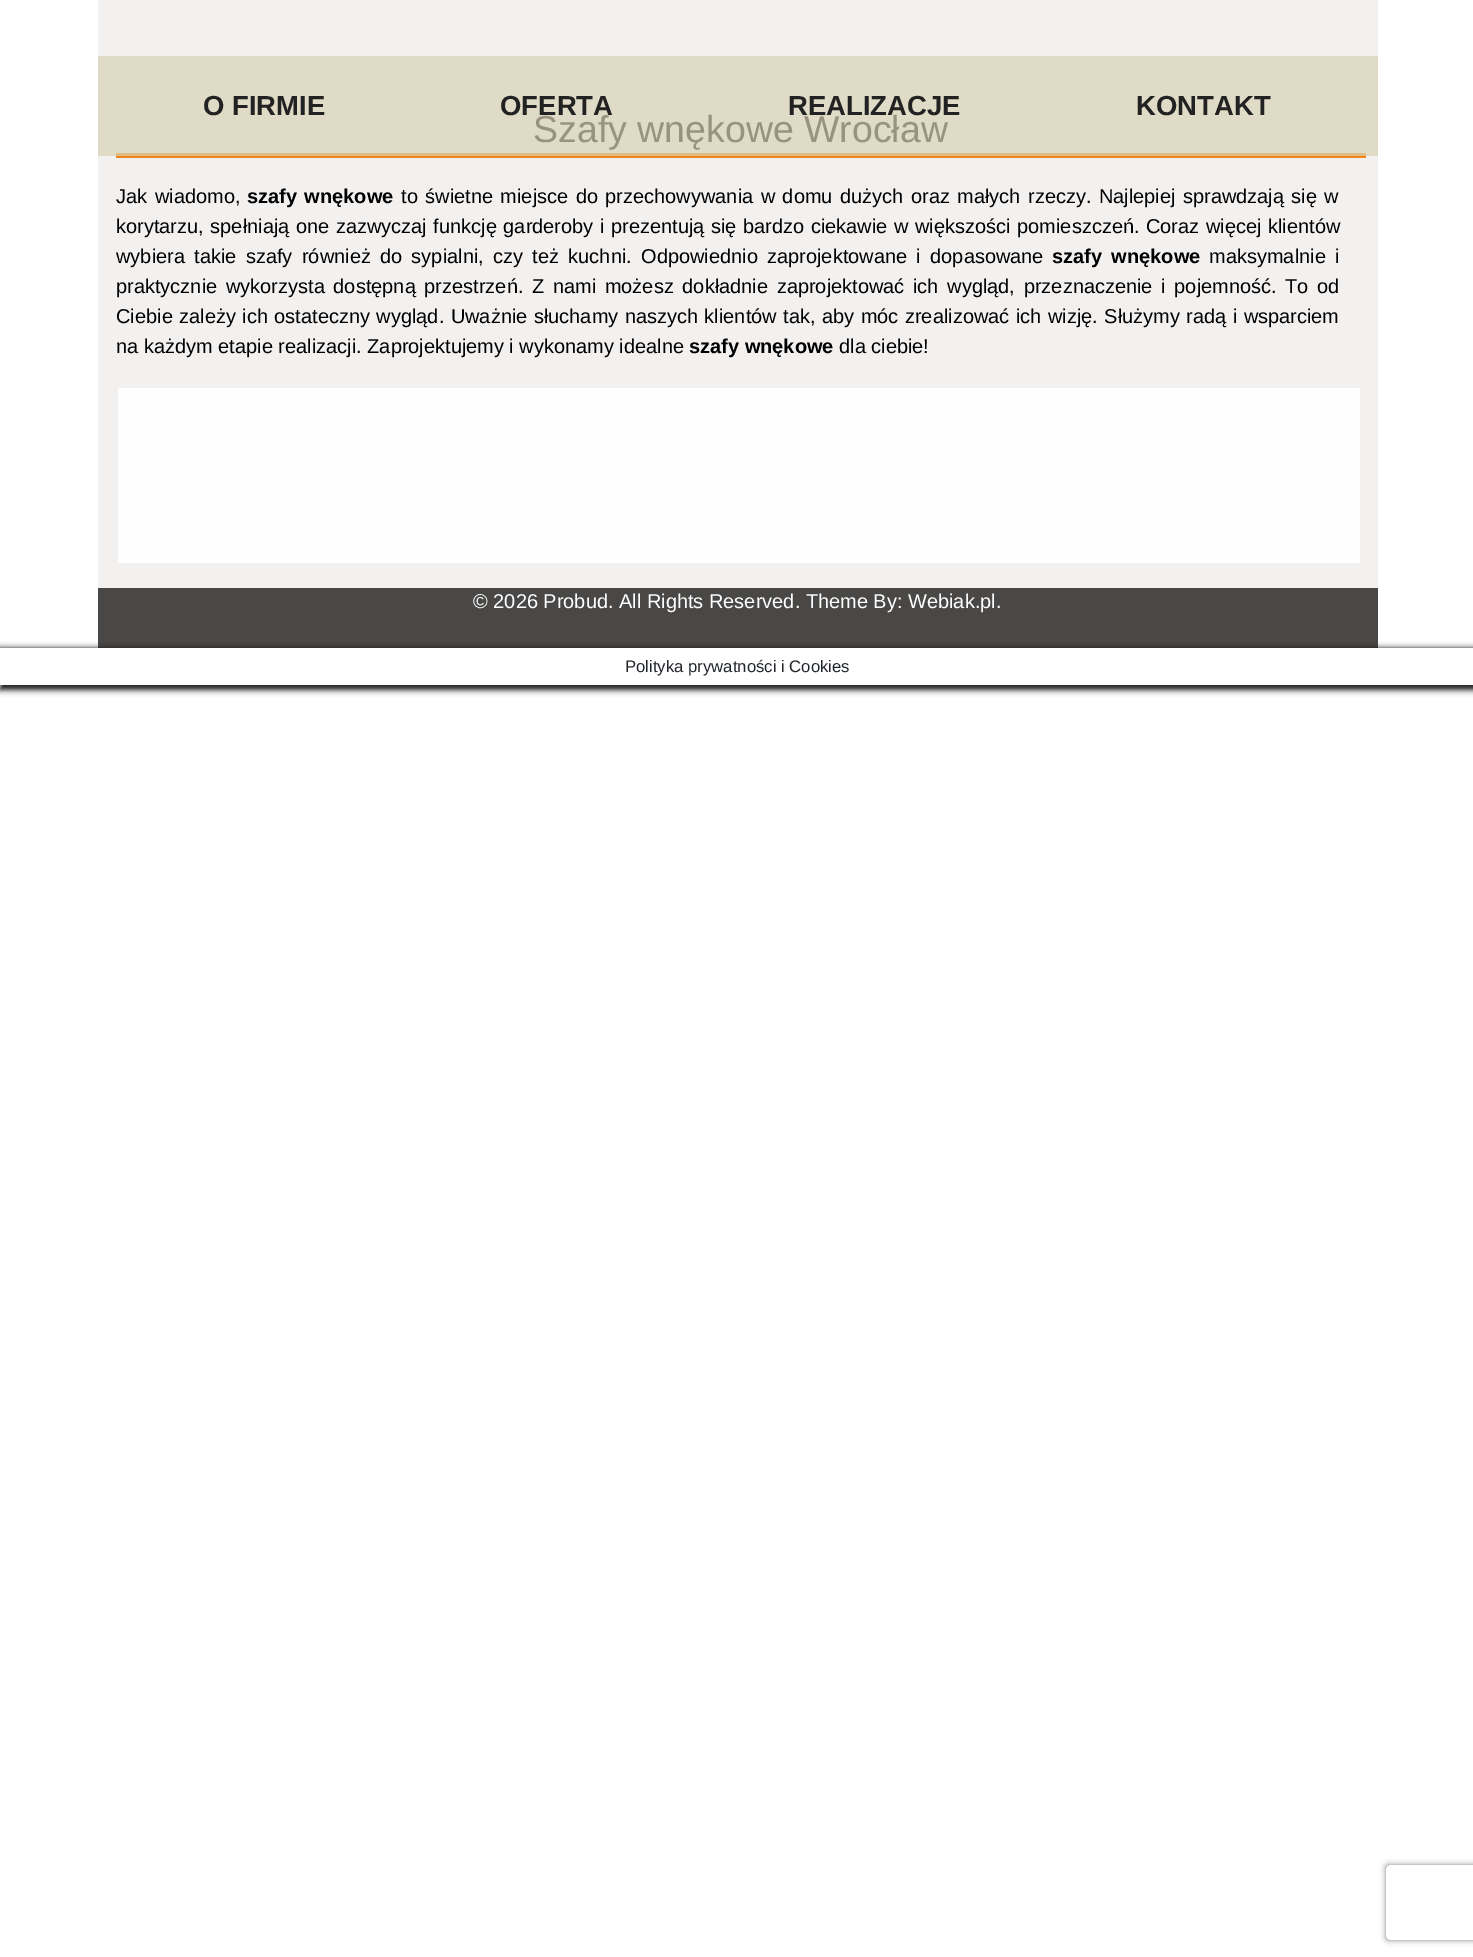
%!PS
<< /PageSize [1473 1957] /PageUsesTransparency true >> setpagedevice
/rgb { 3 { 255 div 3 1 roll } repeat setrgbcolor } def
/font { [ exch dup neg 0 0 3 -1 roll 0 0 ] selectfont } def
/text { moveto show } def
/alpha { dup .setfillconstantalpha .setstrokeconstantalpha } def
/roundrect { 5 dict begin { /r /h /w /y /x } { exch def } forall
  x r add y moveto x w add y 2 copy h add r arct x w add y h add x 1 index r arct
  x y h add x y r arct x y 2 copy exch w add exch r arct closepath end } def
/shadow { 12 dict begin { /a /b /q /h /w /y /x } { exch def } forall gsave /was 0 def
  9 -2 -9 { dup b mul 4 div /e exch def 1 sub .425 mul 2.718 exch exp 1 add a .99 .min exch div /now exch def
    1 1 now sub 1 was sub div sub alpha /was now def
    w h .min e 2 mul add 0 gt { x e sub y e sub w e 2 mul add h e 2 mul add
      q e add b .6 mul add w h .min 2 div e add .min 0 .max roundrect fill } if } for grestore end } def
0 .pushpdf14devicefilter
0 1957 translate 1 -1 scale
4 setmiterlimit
255 255 255 rgb
0 0 1473 1957 rectfill
243 241 240 rgb
98 0 1280 588 rectfill
223 219 198 rgb
98 56 1280 100 rectfill
240 132 25 rgb
116 156 1250 2 rectfill
223 187 134 rgb
116 153 1250 3 rectfill
254 254 254 rgb
118 388 1242 175 rectfill
73 72 71 rgb
98 588 1280 60 rectfill
gsave
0 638 moveto 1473 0 rlineto 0 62 rlineto -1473 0 rlineto closepath 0 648 moveto 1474 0 rlineto 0 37 rlineto -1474 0 rlineto closepath eoclip newpath
22 22 22 rgb
0 648 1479 42 0 3 1 shadow
grestore
gsave
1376 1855 moveto 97 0 rlineto 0 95 rlineto -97 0 rlineto closepath 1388.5 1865 moveto 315 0 rlineto 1.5 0 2.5 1 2.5 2.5 rcurveto 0 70 rlineto 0 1.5 -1 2.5 -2.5 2.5 rcurveto -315 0 rlineto -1.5 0 -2.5 -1 -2.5 -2.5 rcurveto 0 -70 rlineto 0 -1.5 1 -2.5 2.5 -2.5 rcurveto closepath eoclip newpath
128 128 128 rgb
1386 1865 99 75 2.5 3 1 shadow
grestore
/LiberationSans-Bold 27.5 font
34 34 34 rgb
(O FIRMIE) 203 115 text
(OFERTA) 500 115 text
(REALIZACJE) 788 115 text
(KONTAKT) 1136 115 text
/LiberationSans-Regular 37.5 font
151 147 126 rgb
(Szafy wnękowe Wrocław) 533 142 text
/LiberationSans-Regular 20 font
0 0 0 rgb
116 203 moveto 2 0 32 (Jak wiadomo,) widthshow
/LiberationSans-Bold 20 font
247 203 moveto 1.9 0 32 (szafy wnękowe) widthshow
/LiberationSans-Regular 20 font
401 203 moveto 1.9 0 32 (to świetne miejsce do przechowywania w domu dużych oraz małych rzeczy. Najlepiej sprawdzają się w) widthshow
116 233 moveto 1 0 32 (korytarzu, spełniają one zazwyczaj funkcję garderoby i prezentują się bardzo ciekawie w większości pomieszczeń. Coraz więcej klientów) widthshow
116 263 moveto 3.75 0 32 (wybiera takie szafy również do sypialni, czy też kuchni. Odpowiednio zaprojektowane i dopasowane) widthshow
/LiberationSans-Bold 20 font
1052 263 moveto 3.75 0 32 (szafy wnękowe) widthshow
/LiberationSans-Regular 20 font
1209 263 moveto 3.75 0 32 (maksymalnie i) widthshow
116 293 moveto 3.1 0 32 (praktycznie wykorzysta dostępną przestrzeń. Z nami możesz dokładnie zaprojektować ich wygląd, przeznaczenie i pojemność. To od) widthshow
116 323 moveto 0.9 0 32 (Ciebie zależy ich ostateczny wygląd. Uważnie słuchamy naszych klientów tak, aby móc zrealizować ich wizję. Służymy radą i wsparciem) widthshow
(na każdym etapie realizacji. Zaprojektujemy i wykonamy idealne) 116 353 text
/LiberationSans-Bold 20 font
(szafy wnękowe) 689 353 text
/LiberationSans-Regular 20 font
(dla ciebie!) 839 353 text
255 255 255 rgb
(© 2026 Probud. All Rights Reserved. Theme By: Webiak.pl.) 473 608 text
/LiberationSans-Regular 16.7 font
33 37 41 rgb
(Polityka prywatności i Cookies) 625 672 text
.poppdf14devicefilter showpage
